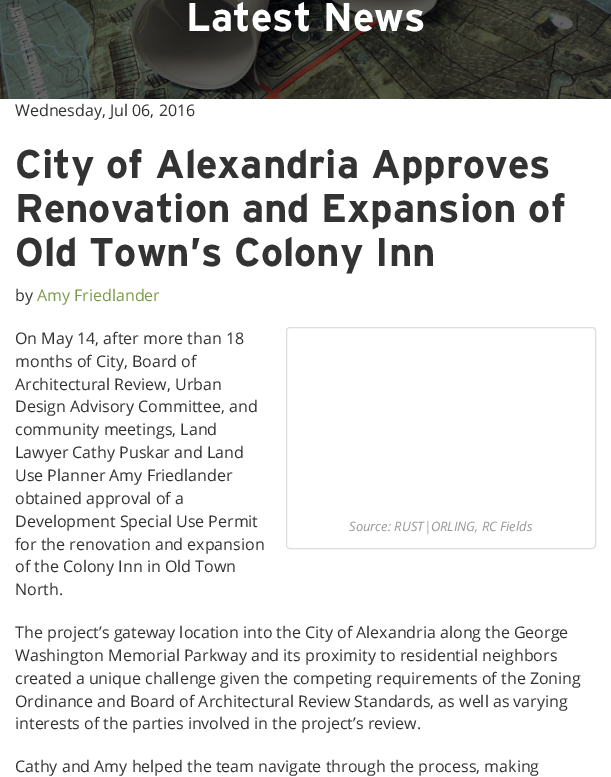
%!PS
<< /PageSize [611 777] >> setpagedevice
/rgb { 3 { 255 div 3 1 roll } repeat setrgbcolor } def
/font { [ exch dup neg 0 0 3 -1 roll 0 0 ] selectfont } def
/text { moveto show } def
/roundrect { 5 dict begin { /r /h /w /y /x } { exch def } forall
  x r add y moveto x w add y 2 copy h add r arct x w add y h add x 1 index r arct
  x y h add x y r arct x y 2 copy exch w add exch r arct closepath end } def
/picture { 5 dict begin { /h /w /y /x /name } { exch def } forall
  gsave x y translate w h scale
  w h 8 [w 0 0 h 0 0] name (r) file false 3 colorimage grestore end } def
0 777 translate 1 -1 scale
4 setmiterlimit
255 255 255 rgb
0 0 611 777 rectfill
(img_01.rgb) 0 0 611 99 picture
221 221 221 rgb
286.5 327.5 309 221 3.5 roundrect stroke
/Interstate-Bold 40 font
255 255 255 rgb
(Latest News) 186 31 text
/OpenSans-Regular 16 font
51 51 51 rgb
(Wednesday, Jul 06, 2016) 15 116 text
/Interstate-Bold 40 font
(City of Alexandria Approves) 15 178 text
(Renovation and Expansion of) 15 222 text
(Old Town’s Colony Inn) 15 266 text
/OpenSans-Regular 16 font
(by) 15 301 text
123 154 74 rgb
(Amy Friedlander) 37 301 text
51 51 51 rgb
(On May 14, after more than 18) 15 344 text
(months of City, Board of) 15 367 text
(Architectural Review, Urban) 15 390 text
(Design Advisory Committee, and) 15 412 text
(community meetings, Land) 15 435 text
(Lawyer Cathy Puskar and Land) 15 458 text
(Use Planner Amy Friedlander) 15 481 text
(obtained approval of a) 15 504 text
(Development Special Use Permit) 15 527 text
(for the renovation and expansion) 15 550 text
(of the Colony Inn in Old Town) 15 572 text
(North.) 15 595 text
/OpenSans-Italic 13 font
153 153 153 rgb
(Source: RUST|ORLING, RC Fields) 349 531 text
/OpenSans-Regular 16 font
51 51 51 rgb
(The project’s gateway location into the City of Alexandria along the George) 15 638 text
(Washington Memorial Parkway and its proximity to residential neighbors) 15 661 text
(created a unique challenge given the competing requirements of the Zoning) 15 684 text
(Ordinance and Board of Architectural Review Standards, as well as varying) 15 707 text
(interests of the parties involved in the project’s review.) 15 729 text
(Cathy and Amy helped the team navigate through the process, making) 15 772 text
showpage
